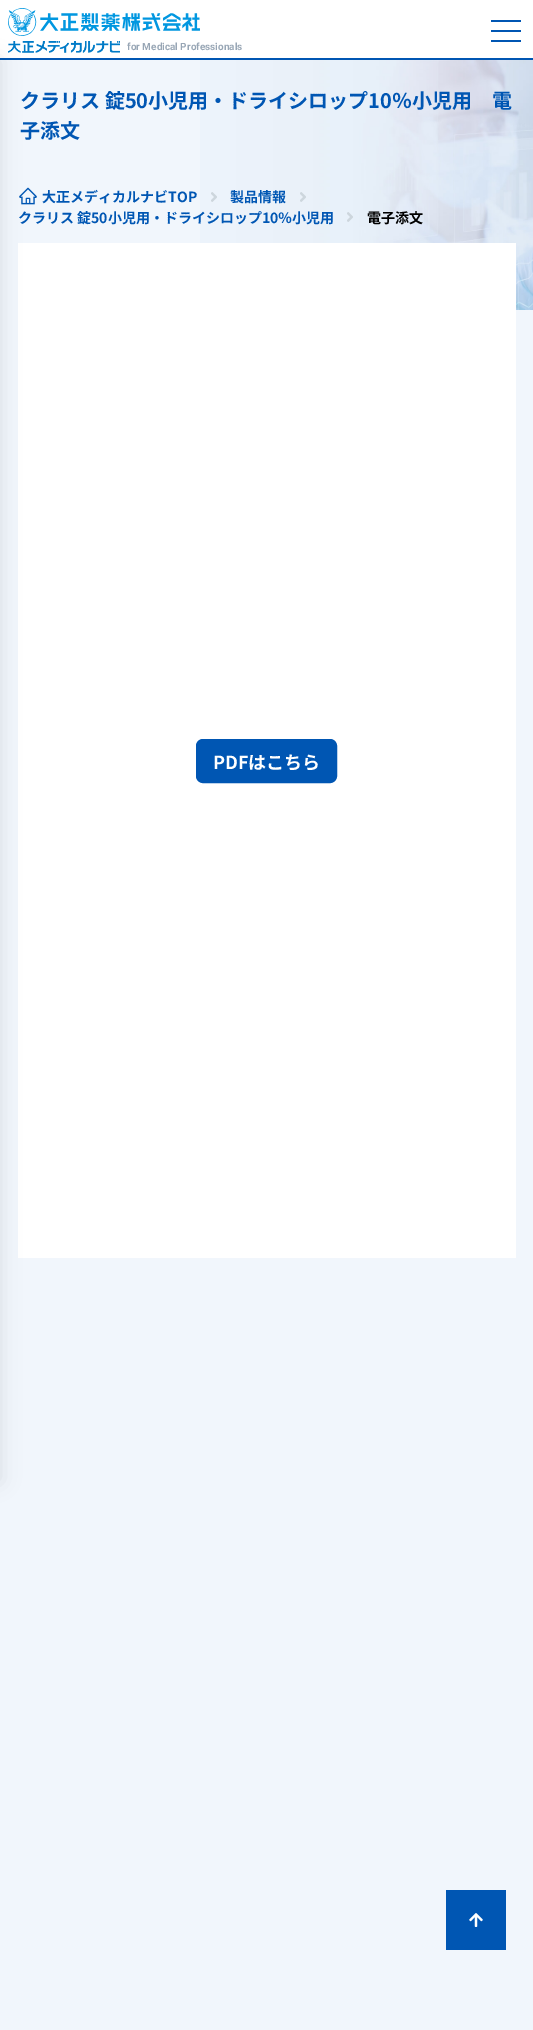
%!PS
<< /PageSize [533 2030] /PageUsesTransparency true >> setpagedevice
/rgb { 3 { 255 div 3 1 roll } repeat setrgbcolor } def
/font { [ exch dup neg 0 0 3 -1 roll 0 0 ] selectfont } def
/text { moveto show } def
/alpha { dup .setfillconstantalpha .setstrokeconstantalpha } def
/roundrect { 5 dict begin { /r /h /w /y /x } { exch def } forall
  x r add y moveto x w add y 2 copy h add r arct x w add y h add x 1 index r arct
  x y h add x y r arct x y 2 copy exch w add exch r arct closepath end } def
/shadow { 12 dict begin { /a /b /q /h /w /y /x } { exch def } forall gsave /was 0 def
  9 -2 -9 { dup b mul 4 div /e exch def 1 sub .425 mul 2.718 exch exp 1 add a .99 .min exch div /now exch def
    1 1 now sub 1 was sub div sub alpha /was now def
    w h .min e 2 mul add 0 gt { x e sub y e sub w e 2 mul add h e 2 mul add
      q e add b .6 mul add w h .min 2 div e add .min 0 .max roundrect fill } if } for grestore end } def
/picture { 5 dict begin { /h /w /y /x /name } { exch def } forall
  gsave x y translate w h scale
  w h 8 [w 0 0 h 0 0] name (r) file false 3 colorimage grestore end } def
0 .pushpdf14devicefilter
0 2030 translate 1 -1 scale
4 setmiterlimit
241 246 252 rgb
0 0 533 2030 rectfill
255 255 255 rgb
0 0 533 58 rectfill
0 86 179 rgb
0 58 533 2 rectfill
(img_01.rgb) 8 8 192 28 picture
(img_02.rgb) 8 41 112 12 picture
(img_04.rgb) 19 187 18 18 picture
(img_03.rgb) 200 60 333 250 picture
255 255 255 rgb
18 243 498 1015 rectfill
0 0 0 rgb
-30 60 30 1421 0 10 0.1 shadow
0 86 179 rgb
491 30 30 2 rectfill
491 20 30 2 rectfill
491 40 30 2 rectfill
(img_05.rgb) 211 192 6 10 picture
(img_06.rgb) 300 192 6 10 picture
(img_07.rgb) 347 212 6 10 picture
196.5 739.5 140 43 6.5 roundrect gsave fill grestore
stroke
446 1890 60 60 rectfill
(img_08.rgb) 469 1913 14 14 picture
/Roboto-Bold 10 font
152 166 181 rgb
(for Medical Professionals) 127 50 text
/NotoSansJP-Bold 20 font
0 86 179 rgb
(クラリス 錠50小児用・ドライシロップ10％小児用　電) 20 108 text
(子添文) 20 138 text
/NotoSansJP-Bold 14 font
(大正メディカルナビTOP) 42 202 text
(製品情報) 230 202 text
(クラリス 錠50小児用・ドライシロップ10％小児用) 18 223 text
0 0 0 rgb
(電子添文) 367 223 text
/NotoSansJP-Bold 18 font
255 255 255 rgb
(PDFはこちら) 213 769 text
.poppdf14devicefilter showpage
